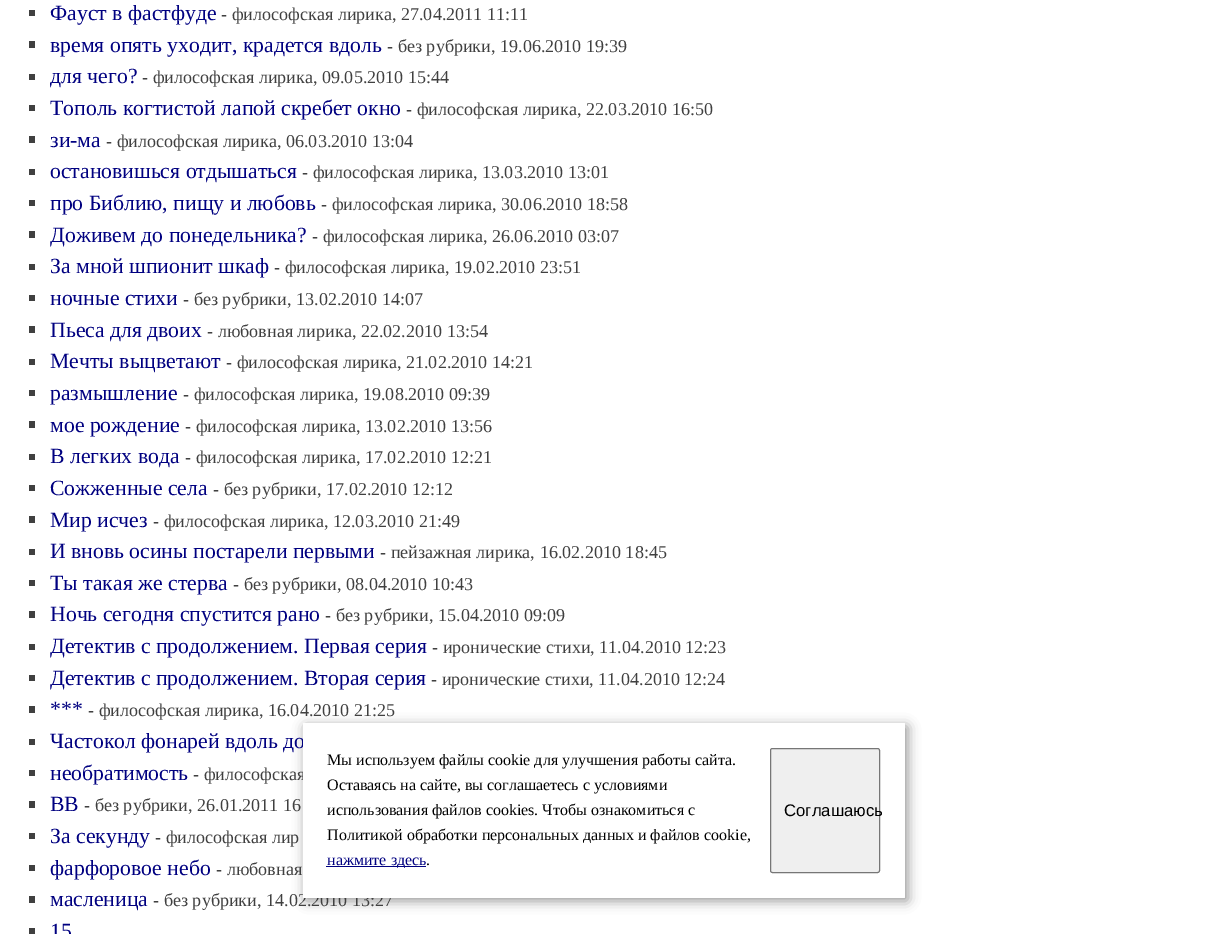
%!PS
<< /PageSize [1206 934] /PageUsesTransparency true >> setpagedevice
/rgb { 3 { 255 div 3 1 roll } repeat setrgbcolor } def
/font { [ exch dup neg 0 0 3 -1 roll 0 0 ] selectfont } def
/text { moveto show } def
/alpha { dup .setfillconstantalpha .setstrokeconstantalpha } def
/roundrect { 5 dict begin { /r /h /w /y /x } { exch def } forall
  x r add y moveto x w add y 2 copy h add r arct x w add y h add x 1 index r arct
  x y h add x y r arct x y 2 copy exch w add exch r arct closepath end } def
/shadow { 12 dict begin { /a /b /q /h /w /y /x } { exch def } forall gsave /was 0 def
  9 -2 -9 { dup b mul 4 div /e exch def 1 sub .425 mul 2.718 exch exp 1 add a .99 .min exch div /now exch def
    1 1 now sub 1 was sub div sub alpha /was now def
    w h .min e 2 mul add 0 gt { x e sub y e sub w e 2 mul add h e 2 mul add
      q e add b .6 mul add w h .min 2 div e add .min 0 .max roundrect fill } if } for grestore end } def
0 .pushpdf14devicefilter
0 934 translate 1 -1 scale
4 setmiterlimit
255 255 255 rgb
0 0 1206 934 rectfill
64 64 64 rgb
29 10 6 6 rectfill
29 41 6 7 rectfill
29 74 6 6 rectfill
29 105 6 6 rectfill
29 136 6 7 rectfill
29 169 6 6 rectfill
29 200 6 6 rectfill
29 231 6 7 rectfill
29 264 6 6 rectfill
29 295 6 6 rectfill
29 326 6 7 rectfill
29 359 6 6 rectfill
29 390 6 6 rectfill
29 421 6 7 rectfill
29 454 6 6 rectfill
29 485 6 6 rectfill
29 516 6 7 rectfill
29 549 6 6 rectfill
29 580 6 6 rectfill
29 611 6 7 rectfill
29 644 6 6 rectfill
29 675 6 6 rectfill
29 706 6 7 rectfill
29 739 6 6 rectfill
29 770 6 6 rectfill
29 801 6 7 rectfill
29 833 6 6 rectfill
29 865 6 6 rectfill
29 896 6 7 rectfill
29 928 6 6 rectfill
0 0 0 rgb
305 726 603 175 1 6 0.4 shadow
/LiberationSerif-Regular 21.7 font
0 0 128 rgb
(Фауст в фастфуде) 50 20 text
/LiberationSerif-Regular 18.1 font
64 64 64 rgb
(- философская лирика, 27.04.2011 11:11) 221 20 text
/LiberationSerif-Regular 21.7 font
0 0 128 rgb
(время опять уходит, крадется вдоль) 50 52 text
/LiberationSerif-Regular 18.1 font
64 64 64 rgb
(- без рубрики, 19.06.2010 19:39) 387 52 text
/LiberationSerif-Regular 21.7 font
0 0 128 rgb
(для чего?) 50 83 text
/LiberationSerif-Regular 18.1 font
64 64 64 rgb
(- философская лирика, 09.05.2010 15:44) 142 83 text
/LiberationSerif-Regular 21.7 font
0 0 128 rgb
(Тополь когтистой лапой скребет окно) 50 115 text
/LiberationSerif-Regular 18.1 font
64 64 64 rgb
(- философская лирика, 22.03.2010 16:50) 406 115 text
/LiberationSerif-Regular 21.7 font
0 0 128 rgb
(зи-ма) 50 147 text
/LiberationSerif-Regular 18.1 font
64 64 64 rgb
(- философская лирика, 06.03.2010 13:04) 106 147 text
/LiberationSerif-Regular 21.7 font
0 0 128 rgb
(остановишься отдышаться) 50 178 text
/LiberationSerif-Regular 18.1 font
64 64 64 rgb
(- философская лирика, 13.03.2010 13:01) 302 178 text
/LiberationSerif-Regular 21.7 font
0 0 128 rgb
(про Библию, пищу и любовь) 50 210 text
/LiberationSerif-Regular 18.1 font
64 64 64 rgb
(- философская лирика, 30.06.2010 18:58) 321 210 text
/LiberationSerif-Regular 21.7 font
0 0 128 rgb
(Доживем до понедельника?) 50 242 text
/LiberationSerif-Regular 18.1 font
64 64 64 rgb
(- философская лирика, 26.06.2010 03:07) 312 242 text
/LiberationSerif-Regular 21.7 font
0 0 128 rgb
(За мной шпионит шкаф) 50 273 text
/LiberationSerif-Regular 18.1 font
64 64 64 rgb
(- философская лирика, 19.02.2010 23:51) 274 273 text
/LiberationSerif-Regular 21.7 font
0 0 128 rgb
(ночные стихи) 50 305 text
/LiberationSerif-Regular 18.1 font
64 64 64 rgb
(- без рубрики, 13.02.2010 14:07) 183 305 text
/LiberationSerif-Regular 21.7 font
0 0 128 rgb
(Пьеса для двоих) 50 337 text
/LiberationSerif-Regular 18.1 font
64 64 64 rgb
(- любовная лирика, 22.02.2010 13:54) 207 337 text
/LiberationSerif-Regular 21.7 font
0 0 128 rgb
(Мечты выцветают) 50 368 text
/LiberationSerif-Regular 18.1 font
64 64 64 rgb
(- философская лирика, 21.02.2010 14:21) 226 368 text
/LiberationSerif-Regular 21.7 font
0 0 128 rgb
(размышление) 50 400 text
/LiberationSerif-Regular 18.1 font
64 64 64 rgb
(- философская лирика, 19.08.2010 09:39) 183 400 text
/LiberationSerif-Regular 21.7 font
0 0 128 rgb
(мое рождение) 50 432 text
/LiberationSerif-Regular 18.1 font
64 64 64 rgb
(- философская лирика, 13.02.2010 13:56) 185 432 text
/LiberationSerif-Regular 21.7 font
0 0 128 rgb
(В легких вода) 50 463 text
/LiberationSerif-Regular 18.1 font
64 64 64 rgb
(- философская лирика, 17.02.2010 12:21) 185 463 text
/LiberationSerif-Regular 21.7 font
0 0 128 rgb
(Сожженные села) 50 495 text
/LiberationSerif-Regular 18.1 font
64 64 64 rgb
(- без рубрики, 17.02.2010 12:12) 213 495 text
/LiberationSerif-Regular 21.7 font
0 0 128 rgb
(Мир исчез) 50 527 text
/LiberationSerif-Regular 18.1 font
64 64 64 rgb
(- философская лирика, 12.03.2010 21:49) 153 527 text
/LiberationSerif-Regular 21.7 font
0 0 128 rgb
(И вновь осины постарели первыми) 50 558 text
/LiberationSerif-Regular 18.1 font
64 64 64 rgb
(- пейзажная лирика, 16.02.2010 18:45) 380 558 text
/LiberationSerif-Regular 21.7 font
0 0 128 rgb
(Ты такая же стерва) 50 590 text
/LiberationSerif-Regular 18.1 font
64 64 64 rgb
(- без рубрики, 08.04.2010 10:43) 233 590 text
/LiberationSerif-Regular 21.7 font
0 0 128 rgb
(Ночь сегодня спустится рано) 50 621 text
/LiberationSerif-Regular 18.1 font
64 64 64 rgb
(- без рубрики, 15.04.2010 09:09) 325 621 text
/LiberationSerif-Regular 21.7 font
0 0 128 rgb
(Детектив с продолжением. Первая серия) 50 653 text
/LiberationSerif-Regular 18.1 font
64 64 64 rgb
(- иронические стихи, 11.04.2010 12:23) 432 653 text
/LiberationSerif-Regular 21.7 font
0 0 128 rgb
(Детектив с продолжением. Вторая серия) 50 685 text
/LiberationSerif-Regular 18.1 font
64 64 64 rgb
(- иронические стихи, 11.04.2010 12:24) 431 685 text
/LiberationSerif-Regular 21.7 font
0 0 128 rgb
(***) 50 716 text
/LiberationSerif-Regular 18.1 font
64 64 64 rgb
(- философская лирика, 16.04.2010 21:25) 88 716 text
/LiberationSerif-Regular 21.7 font
0 0 128 rgb
(Частокол фонарей вдоль до) 50 748 text
(необратимость) 50 780 text
/LiberationSerif-Regular 18.1 font
64 64 64 rgb
(- философская) 193 780 text
/LiberationSerif-Regular 21.7 font
0 0 128 rgb
(ВВ) 50 811 text
/LiberationSerif-Regular 18.1 font
64 64 64 rgb
(- без рубрики, 26.01.2011 16) 84 811 text
/LiberationSerif-Regular 21.7 font
0 0 128 rgb
(За секунду) 50 843 text
/LiberationSerif-Regular 18.1 font
64 64 64 rgb
(- философская лир) 155 843 text
/LiberationSerif-Regular 21.7 font
0 0 128 rgb
(фарфоровое небо) 50 875 text
/LiberationSerif-Regular 18.1 font
64 64 64 rgb
(- любовная) 216 875 text
/LiberationSerif-Regular 21.7 font
0 0 128 rgb
(масленица) 50 906 text
/LiberationSerif-Regular 18.1 font
64 64 64 rgb
(- без рубрики, 14.02.2010 13:27) 153 906 text
/LiberationSerif-Regular 21.7 font
0 0 128 rgb
(15) 50 938 text
255 255 255 rgb
303 723 602 175 1 roundrect fill
/LiberationSerif-Regular 16 font
0 0 0 rgb
(Мы используем файлы cookie для улучшения работы сайта.) 327 765 text
(Оставаясь на сайте, вы соглашаетесь с условиями) 327 790 text
(использования файлов cookies. Чтобы ознакомиться с) 327 815 text
(Политикой обработки персональных данных и файлов cookie,) 327 840 text
0 0 128 rgb
326 866 100 1 rectfill
(нажмите здесь) 327 865 text
0 0 0 rgb
(.) 426 865 text
239 239 239 rgb
770.5 748.5 109 124 2 roundrect gsave fill grestore
118 118 118 rgb
stroke
/LiberationSans-Regular 16.75 font
0 0 0 rgb
(Соглашаюсь) 784 816 text
.poppdf14devicefilter showpage
